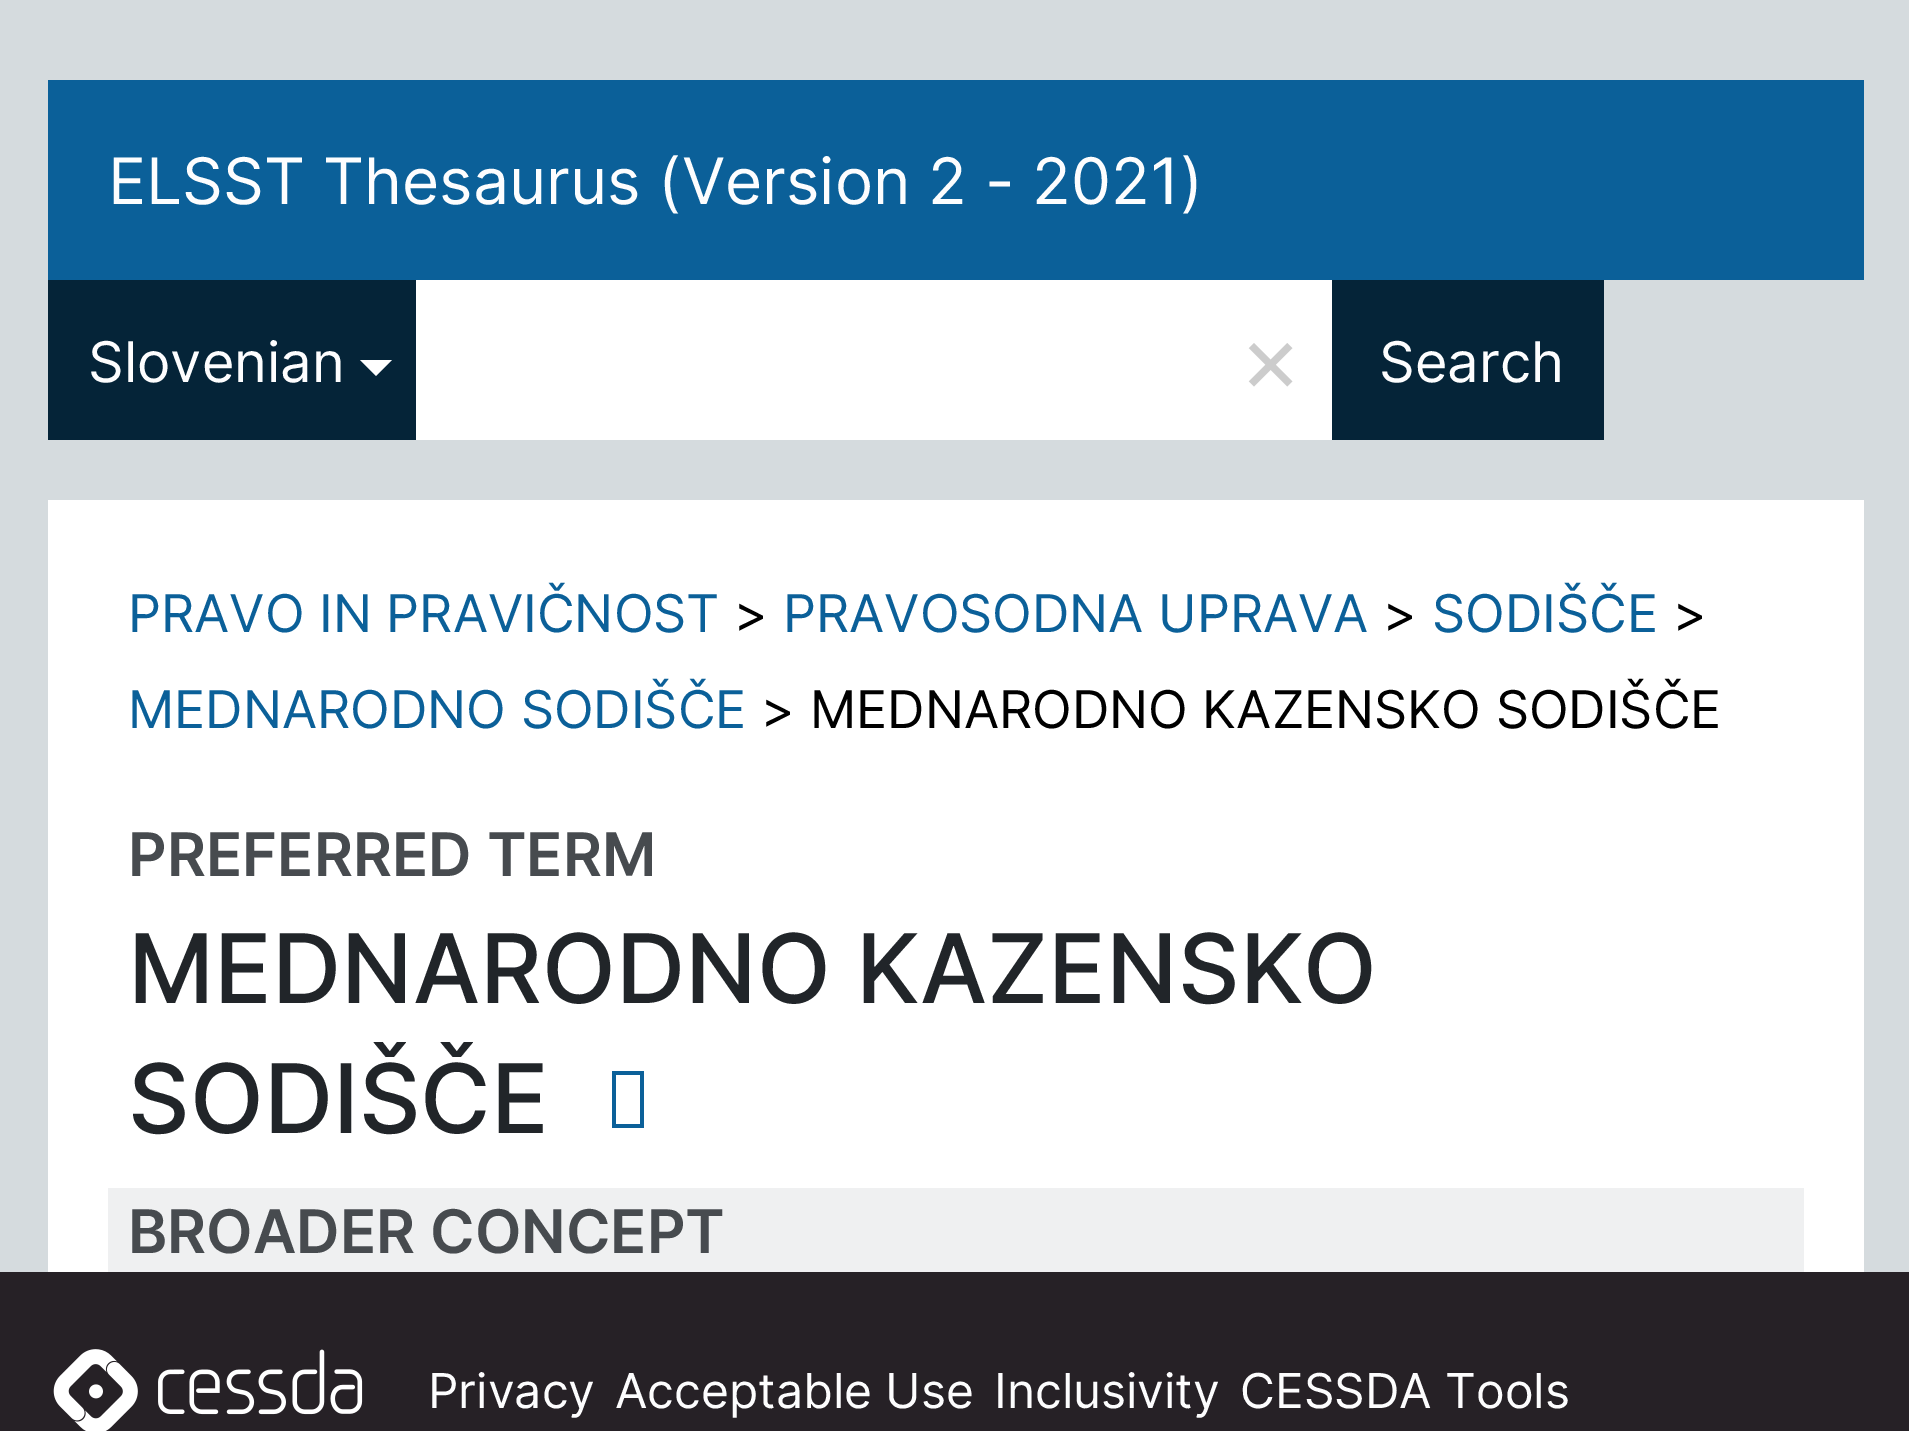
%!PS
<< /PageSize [1909 1431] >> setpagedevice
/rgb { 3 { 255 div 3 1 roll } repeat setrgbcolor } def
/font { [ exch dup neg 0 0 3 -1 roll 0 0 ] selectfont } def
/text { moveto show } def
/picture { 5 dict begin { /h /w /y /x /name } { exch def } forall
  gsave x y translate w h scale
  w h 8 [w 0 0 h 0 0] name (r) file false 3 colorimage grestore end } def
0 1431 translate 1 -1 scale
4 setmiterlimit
213 219 222 rgb
0 0 1909 1431 rectfill
11 96 153 rgb
48 80 1816 200 rectfill
5 36 56 rgb
48 280 368 160 rectfill
255 255 255 rgb
360 360 moveto 32 0 rlineto -16 16 rlineto closepath fill
416 280 916 160 rectfill
5 36 56 rgb
1332 280 272 160 rectfill
255 255 255 rgb
48 500 1816 772 rectfill
11 96 153 rgb
612 1128 moveto 0 -57 rlineto 32 0 rlineto 0 57 rlineto closepath 616 1124 moveto 24 0 rlineto 0 -49 rlineto -24 0 rlineto closepath fill
239 240 241 rgb
108 1188 1696 84 rectfill
38 33 38 rgb
0 1272 1909 159 rectfill
(img_01.rgb) 53 1349 310 82 picture
/Inter-Regular 64 font
253 253 254 rgb
(ELSST Thesaurus \(Version 2 - 2021\)) 108 204 text
/Inter-Regular 56 font
(Slovenian) 88 382 text
/Inter-Regular 96 font
204 204 204 rgb
(×) 1239 392 text
/Inter-Regular 56 font
253 253 254 rgb
(Search) 1379 382 text
/Inter-Regular 52 font
11 96 153 rgb
(PRAVO IN PRAVIČNOST) 128 632 text
0 0 0 rgb
(>) 734 632 text
11 96 153 rgb
(PRAVOSODNA UPRAVA) 783 632 text
0 0 0 rgb
(>) 1383 632 text
11 96 153 rgb
(SODIŠČE) 1432 632 text
0 0 0 rgb
(>) 1673 632 text
11 96 153 rgb
(MEDNARODNO SODIŠČE) 128 728 text
0 0 0 rgb
(> MEDNARODNO KAZENSKO SODIŠČE) 761 728 text
/Inter-SemiBold 60 font
71 75 79 rgb
(PREFERRED TERM) 128 876 text
/Inter-Medium 96 font
33 37 41 rgb
(MEDNARODNO KAZENSKO) 128 1003 text
(SODIŠČE) 128 1133 text
/Inter-SemiBold 60 font
71 75 79 rgb
(BROADER CONCEPT) 128 1253 text
/Inter-Regular 48 font
253 253 254 rgb
(Privacy) 428 1408 text
(Acceptable Use) 615 1408 text
(Inclusivity) 994 1408 text
(CESSDA Tools) 1240 1408 text
showpage
